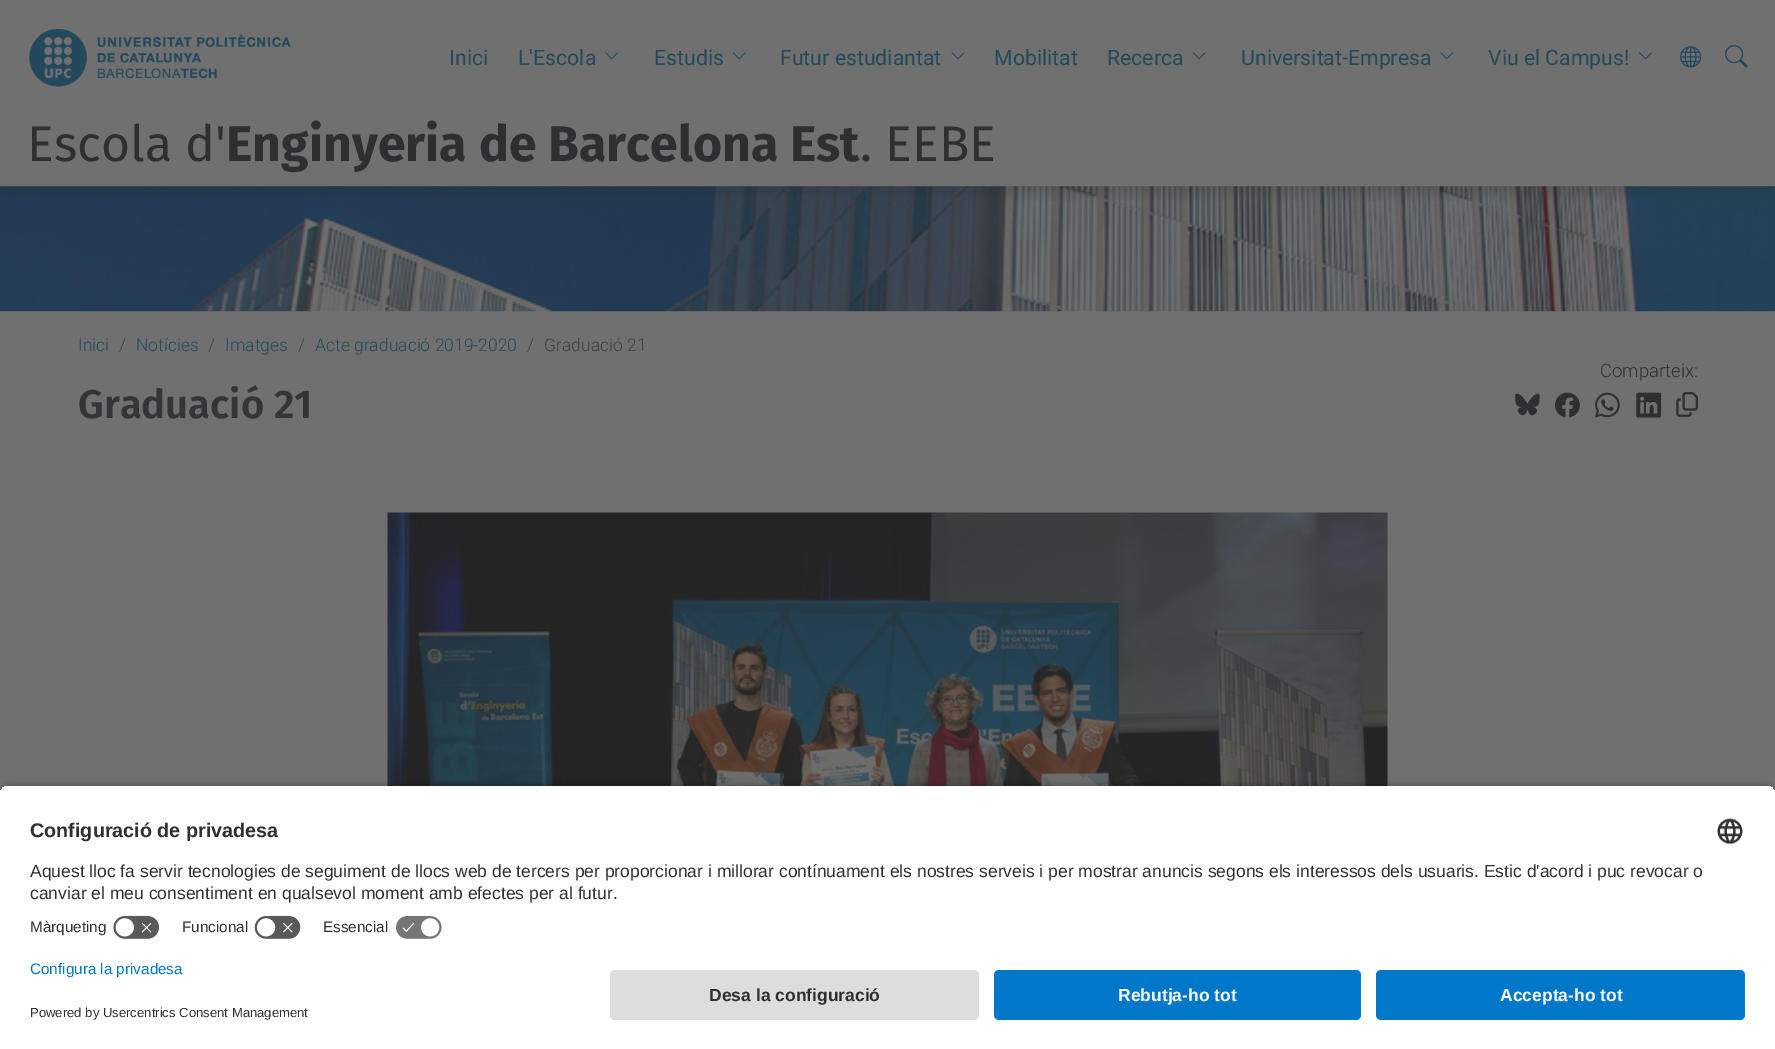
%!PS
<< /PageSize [1775 1049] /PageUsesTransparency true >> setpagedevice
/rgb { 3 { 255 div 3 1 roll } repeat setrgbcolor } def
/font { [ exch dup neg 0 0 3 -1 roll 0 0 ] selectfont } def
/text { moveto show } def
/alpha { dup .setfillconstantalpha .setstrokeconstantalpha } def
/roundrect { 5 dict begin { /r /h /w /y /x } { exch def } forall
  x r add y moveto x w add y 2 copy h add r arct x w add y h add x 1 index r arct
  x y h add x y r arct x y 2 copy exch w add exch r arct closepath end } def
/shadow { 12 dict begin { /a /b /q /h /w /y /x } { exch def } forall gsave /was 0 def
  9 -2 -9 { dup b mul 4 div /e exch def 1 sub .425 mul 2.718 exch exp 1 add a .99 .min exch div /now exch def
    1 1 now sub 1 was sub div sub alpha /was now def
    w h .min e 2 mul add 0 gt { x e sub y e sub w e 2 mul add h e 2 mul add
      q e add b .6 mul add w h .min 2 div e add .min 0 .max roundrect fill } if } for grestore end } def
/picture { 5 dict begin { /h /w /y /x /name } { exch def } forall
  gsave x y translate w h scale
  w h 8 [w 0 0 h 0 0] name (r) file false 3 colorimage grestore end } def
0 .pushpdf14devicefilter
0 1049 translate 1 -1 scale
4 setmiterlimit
112 112 112 rgb
0 0 1775 1049 rectfill
(img_01.rgb) 29 29 262 58 picture
(img_02.rgb) 605 52 14 8 picture
(img_03.rgb) 732 52 14 8 picture
(img_04.rgb) 951 52 14 8 picture
(img_03.rgb) 1192 52 14 8 picture
(img_02.rgb) 1440 52 14 8 picture
(img_05.rgb) 1639 52 13 8 picture
(img_06.rgb) 1680 46 22 22 picture
(img_07.rgb) 1725 45 23 23 picture
(img_08.rgb) 0 186 1775 126 picture
gsave
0 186 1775 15 rectclip
36 36 36 rgb
0 124 1775 71 0 5 0.2 shadow
grestore
(img_09.rgb) 1515 393 25 23 picture
(img_10.rgb) 1555 392 25 26 picture
(img_11.rgb) 1595 392 25 26 picture
(img_12.rgb) 1636 392 26 26 picture
(img_13.rgb) 1676 392 22 25 picture
(img_14.rgb) 387 512 1001 274 picture
0 0 0 rgb
0 789 1775 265 10 4.5 0.8 shadow
gsave
10 785 moveto 1755 0 rlineto 5.5 0 10 4.5 10 10 rcurveto 0 165 rlineto -1775 0 rlineto 0 -165 rlineto 0 -5.5 4.5 -10 10 -10 rcurveto closepath clip newpath
255 255 255 rgb
0 786 1775 174 rectfill
0 786 1775 124 rectfill
grestore
(img_15.rgb) 1717 818 26 27 picture
(img_16.rgb) 112 915 48 25 picture
(img_17.rgb) 254 915 47 25 picture
(img_18.rgb) 395 915 48 25 picture
255 255 255 rgb
0 960 1775 89 rectfill
221 221 221 rgb
610 970 369 50 5 roundrect fill
0 119 200 rgb
994 970 367 50 5 roundrect fill
1376 970 369 50 5 roundrect fill
/Roboto-Regular 21.25 font
36 73 89 rgb
(Inici) 449 65 text
(L'Escola) 518 65 text
(Estudis) 654 65 text
(Futur estudiantat) 780 65 text
(Mobilitat) 994 65 text
(Recerca) 1107 65 text
(Universitat-Empresa) 1241 65 text
(Viu el Campus!) 1488 65 text
/FiraSans-Regular 50 font
46 47 48 rgb
(Escola d') 27 161 text
/FiraSans-Bold 50 font
(Enginyeria de Barcelona Est) 226 161 text
/FiraSans-Regular 50 font
(. EEBE) 860 161 text
/Roboto-Light 17.5 font
36 73 89 rgb
(Inici) 78 351 text
62 63 64 rgb
(/) 119 351 text
36 73 89 rgb
(Notícies) 136 351 text
62 63 64 rgb
(/) 208 351 text
36 73 89 rgb
(Imatges) 225 351 text
62 63 64 rgb
(/) 298 351 text
36 73 89 rgb
(Acte graduació 2019-2020) 315 351 text
62 63 64 rgb
(/) 527 351 text
(Graduació 21) 544 351 text
/Roboto-Light 18.5 font
46 47 48 rgb
(Comparteix:) 1600 377 text
/FiraSans-SemiBold 40 font
51 53 55 rgb
(Graduació 21) 78 418 text
/LiberationSans-Bold 19.75 font
46 47 48 rgb
(Configuració de privadesa) 30 837 text
/LiberationSans-Regular 17.5 font
(Aquest lloc fa servir tecnologies de seguiment de llocs web de tercers per proporcionar i millorar contínuament els nostres serveis i per mostrar anuncis segons els interessos dels usuaris. Estic d'acord i puc revocar o) 30 877 text
(canviar el meu consentiment en qualsevol moment amb efectes per al futur.) 30 899 text
/LiberationSans-Regular 15.25 font
(Màrqueting) 30 932 text
(Funcional) 182 932 text
(Essencial) 323 932 text
0 119 200 rgb
(Configura la privadesa) 30 974 text
/LiberationSans-Regular 13.1 font
46 47 48 rgb
(Powered by Usercentrics Consent Management) 30 1017 text
/LiberationSans-Bold 17.5 font
(Desa la configuració) 709 1001 text
250 250 250 rgb
(Rebutja-ho tot) 1118 1001 text
(Accepta-ho tot) 1500 1001 text
.poppdf14devicefilter showpage
